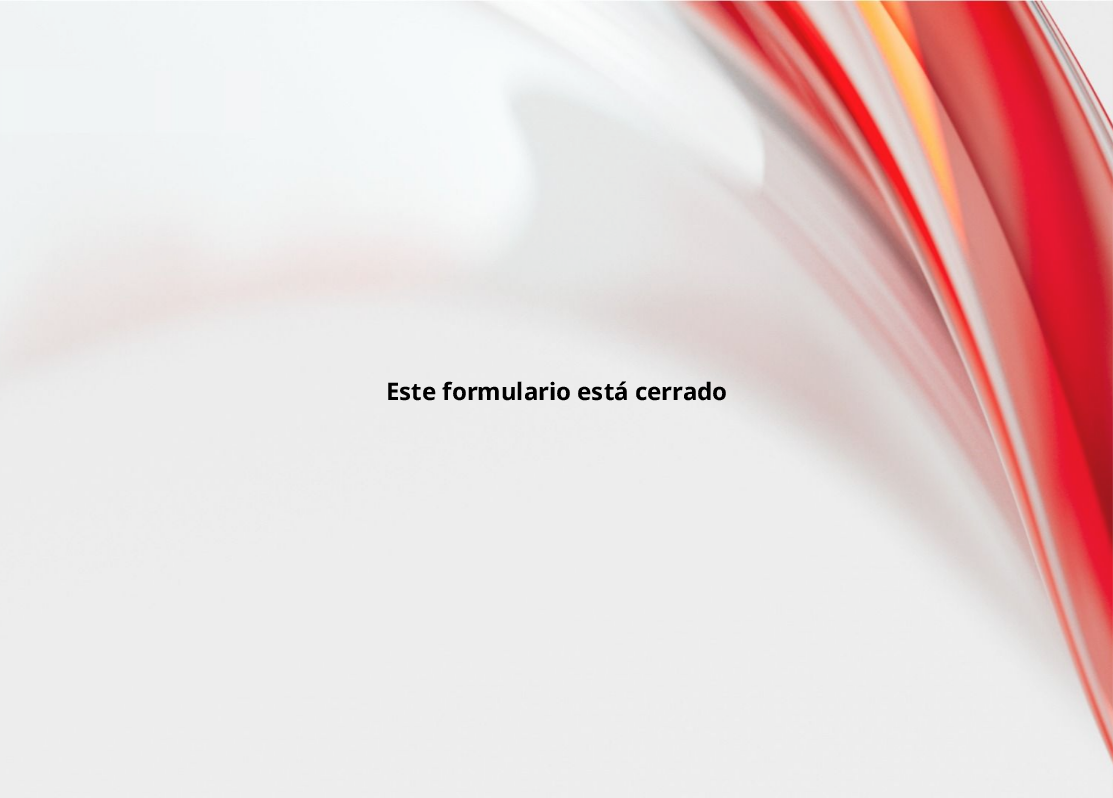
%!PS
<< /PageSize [1113 798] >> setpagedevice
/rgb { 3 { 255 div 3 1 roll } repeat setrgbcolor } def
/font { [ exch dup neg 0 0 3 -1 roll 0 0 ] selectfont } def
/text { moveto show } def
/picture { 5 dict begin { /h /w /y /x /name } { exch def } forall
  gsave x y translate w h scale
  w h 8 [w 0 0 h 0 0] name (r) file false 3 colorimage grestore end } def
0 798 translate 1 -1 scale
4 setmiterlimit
255 255 255 rgb
0 0 1113 798 rectfill
(img_01.rgb) 0 0 1113 798 picture
/NotoSans-Bold 24 font
0 0 0 rgb
(Este formulario está cerrado) 386 400 text
showpage
